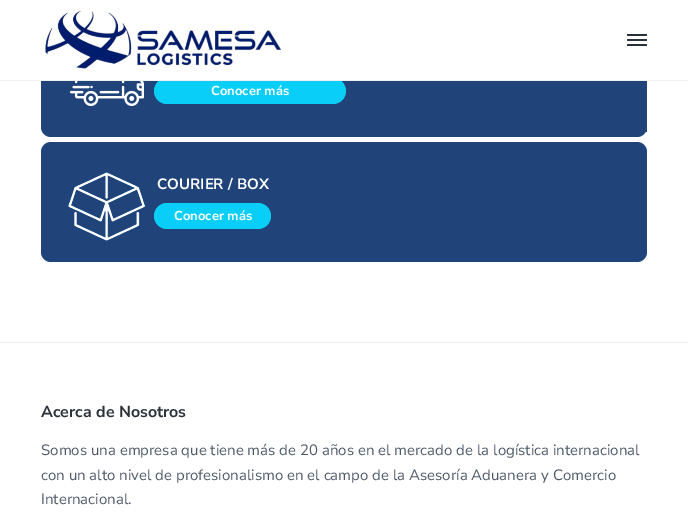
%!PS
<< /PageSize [688 514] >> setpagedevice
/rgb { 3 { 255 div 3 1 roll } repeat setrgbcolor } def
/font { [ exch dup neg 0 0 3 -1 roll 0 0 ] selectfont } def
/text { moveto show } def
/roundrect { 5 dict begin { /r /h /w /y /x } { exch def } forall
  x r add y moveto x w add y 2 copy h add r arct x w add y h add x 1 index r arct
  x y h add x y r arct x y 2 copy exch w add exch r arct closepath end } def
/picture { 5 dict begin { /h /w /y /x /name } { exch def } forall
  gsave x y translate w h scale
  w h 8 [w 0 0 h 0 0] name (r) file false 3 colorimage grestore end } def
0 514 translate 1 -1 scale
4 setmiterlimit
255 255 255 rgb
0 0 688 514 rectfill
32 67 122 rgb
41 17 606 120 10 roundrect fill
8 206 248 rgb
154 78 192 26 13 roundrect fill
255 255 255 rgb
41 17 606 63 rectfill
238 239 240 rgb
0 80 688 1 rectfill
(img_01.rgb) 45 10 237 59 picture
42 49 57 rgb
627 39 20 2 1 roundrect fill
627 34 20 2 1 roundrect fill
627 44 20 2 1 roundrect fill
32 67 122 rgb
646 127 1 5 rectfill
(img_02.rgb) 70 81 74 25 picture
41 142 606 120 10 roundrect fill
(img_03.rgb) 68 172 77 69 picture
8 206 248 rgb
154 203 117 26 13 roundrect fill
236 238 241 rgb
0 342 688 1 rectfill
/NunitoSans-Bold 13 font
255 255 255 rgb
(Conocer más) 211 95 text
/NunitoSans-Bold 15 font
(COURIER / BOX) 157 189 text
/NunitoSans-Bold 13 font
(Conocer más) 174 220 text
/NunitoSans-Bold 16 font
42 49 57 rgb
(Acerca de Nosotros) 41 417 text
/NunitoSans-Regular 15 font
77 89 104 rgb
(Somos una empresa que tiene más de 20 años en el mercado de la logística internacional) 41 455 text
(con un alto nivel de profesionalismo en el campo de la Asesoría Aduanera y Comercio) 41 480 text
(Internacional.) 41 504 text
showpage
